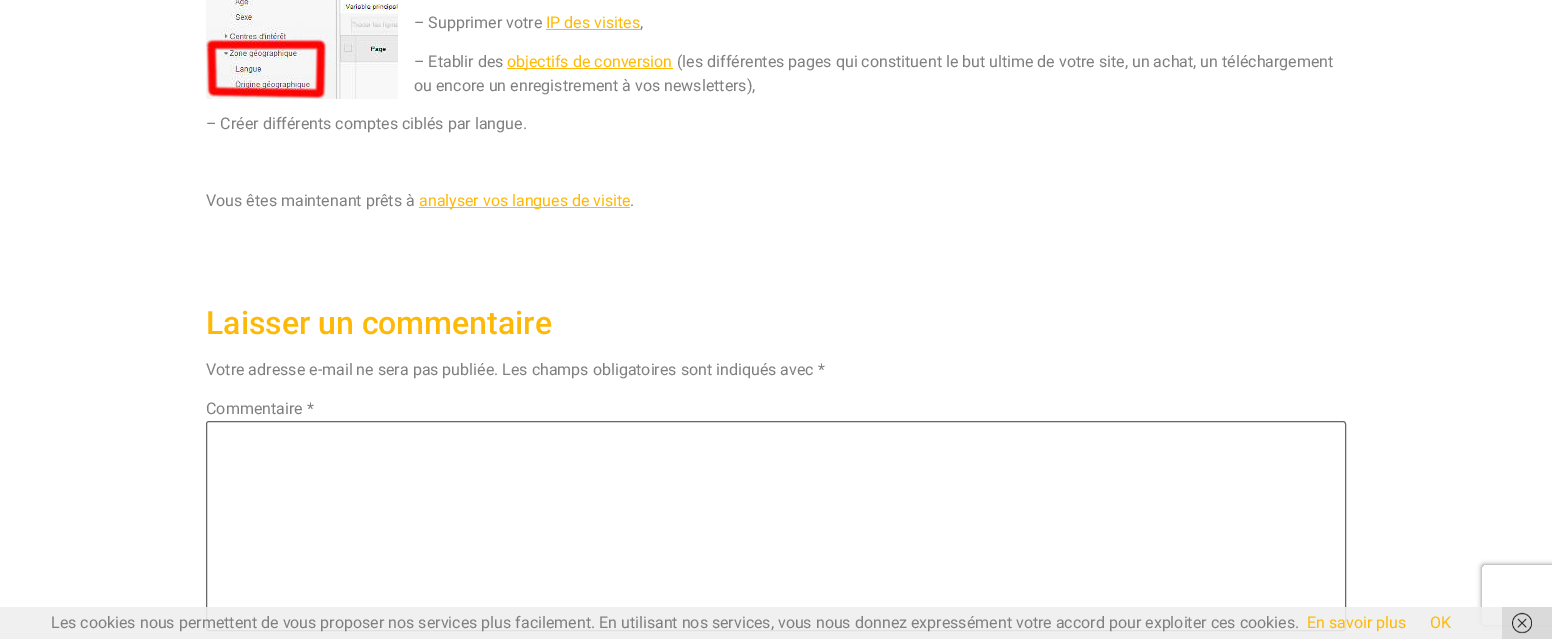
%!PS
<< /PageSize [1552 639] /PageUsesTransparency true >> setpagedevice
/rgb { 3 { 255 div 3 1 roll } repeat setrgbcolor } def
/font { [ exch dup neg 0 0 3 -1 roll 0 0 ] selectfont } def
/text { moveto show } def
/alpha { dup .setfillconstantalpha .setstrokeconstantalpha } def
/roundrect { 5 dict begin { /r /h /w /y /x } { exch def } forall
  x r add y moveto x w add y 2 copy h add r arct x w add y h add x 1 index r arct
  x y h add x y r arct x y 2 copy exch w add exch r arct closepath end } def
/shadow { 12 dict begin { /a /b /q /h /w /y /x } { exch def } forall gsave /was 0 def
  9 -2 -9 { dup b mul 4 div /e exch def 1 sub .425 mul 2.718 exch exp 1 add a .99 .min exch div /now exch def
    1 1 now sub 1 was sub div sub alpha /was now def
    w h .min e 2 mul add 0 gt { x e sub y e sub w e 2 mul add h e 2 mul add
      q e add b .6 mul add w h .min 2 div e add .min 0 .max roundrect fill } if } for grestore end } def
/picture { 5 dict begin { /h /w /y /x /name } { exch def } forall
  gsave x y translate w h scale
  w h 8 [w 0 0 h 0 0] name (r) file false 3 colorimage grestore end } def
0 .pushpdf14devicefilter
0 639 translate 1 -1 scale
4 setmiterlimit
255 255 255 rgb
0 0 1552 639 rectfill
(img_01.rgb) 206 0 192 99 picture
254 185 7 rgb
546 29 94 1 rectfill
507 68 166 1 rectfill
419 207 211 1 rectfill
102 102 102 rgb
206.5 421.5 1139 209 2.5 roundrect stroke
gsave
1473 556 moveto 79 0 rlineto 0 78 rlineto -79 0 rlineto closepath 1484 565 moveto 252 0 rlineto 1 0 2 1 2 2 rcurveto 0 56 rlineto 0 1 -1 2 -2 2 rcurveto -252 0 rlineto -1 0 -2 -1 -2 -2 rcurveto 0 -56 rlineto 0 -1 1 -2 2 -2 rcurveto closepath eoclip newpath
128 128 128 rgb
1482 565 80 60 2 2.5 1 shadow
grestore
0.9 alpha
238 238 238 rgb
0 607 1552 32 rectfill
0.6 alpha
204 204 204 rgb
1502 607 50 32 rectfill
1 alpha
(img_02.rgb) 1512 612 20 22 picture
/Roboto-Regular 16 font
128 128 128 rgb
(– Supprimer votre) 414 28 text
254 185 7 rgb
(IP des visites) 546 28 text
128 128 128 rgb
(,) 640 28 text
(– Etablir des) 414 67 text
254 185 7 rgb
(objectifs de conversion) 507 67 text
128 128 128 rgb
(\(les différentes pages qui constituent le but ultime de votre site, un achat, un téléchargement) 677 67 text
(ou encore un enregistrement à vos newsletters\),) 414 91 text
(– Créer différents comptes ciblés par langue.) 206 129 text
(Vous êtes maintenant prêts à) 206 206 text
254 185 7 rgb
(analyser vos langues de visite) 419 206 text
128 128 128 rgb
(.) 630 206 text
/Roboto-Medium 32 font
254 185 7 rgb
(Laisser un commentaire) 206 334 text
/Roboto-Regular 16 font
128 128 128 rgb
(Votre adresse e-mail ne sera pas publiée. Les champs obligatoires sont indiqués avec *) 206 375 text
(Commentaire *) 206 414 text
(Les cookies nous permettent de vous proposer nos services plus facilement. En utilisant nos services, vous nous donnez expressément votre accord pour exploiter ces cookies.) 51 628 text
254 185 7 rgb
(En savoir plus) 1307 628 text
(OK) 1430 628 text
.poppdf14devicefilter showpage
